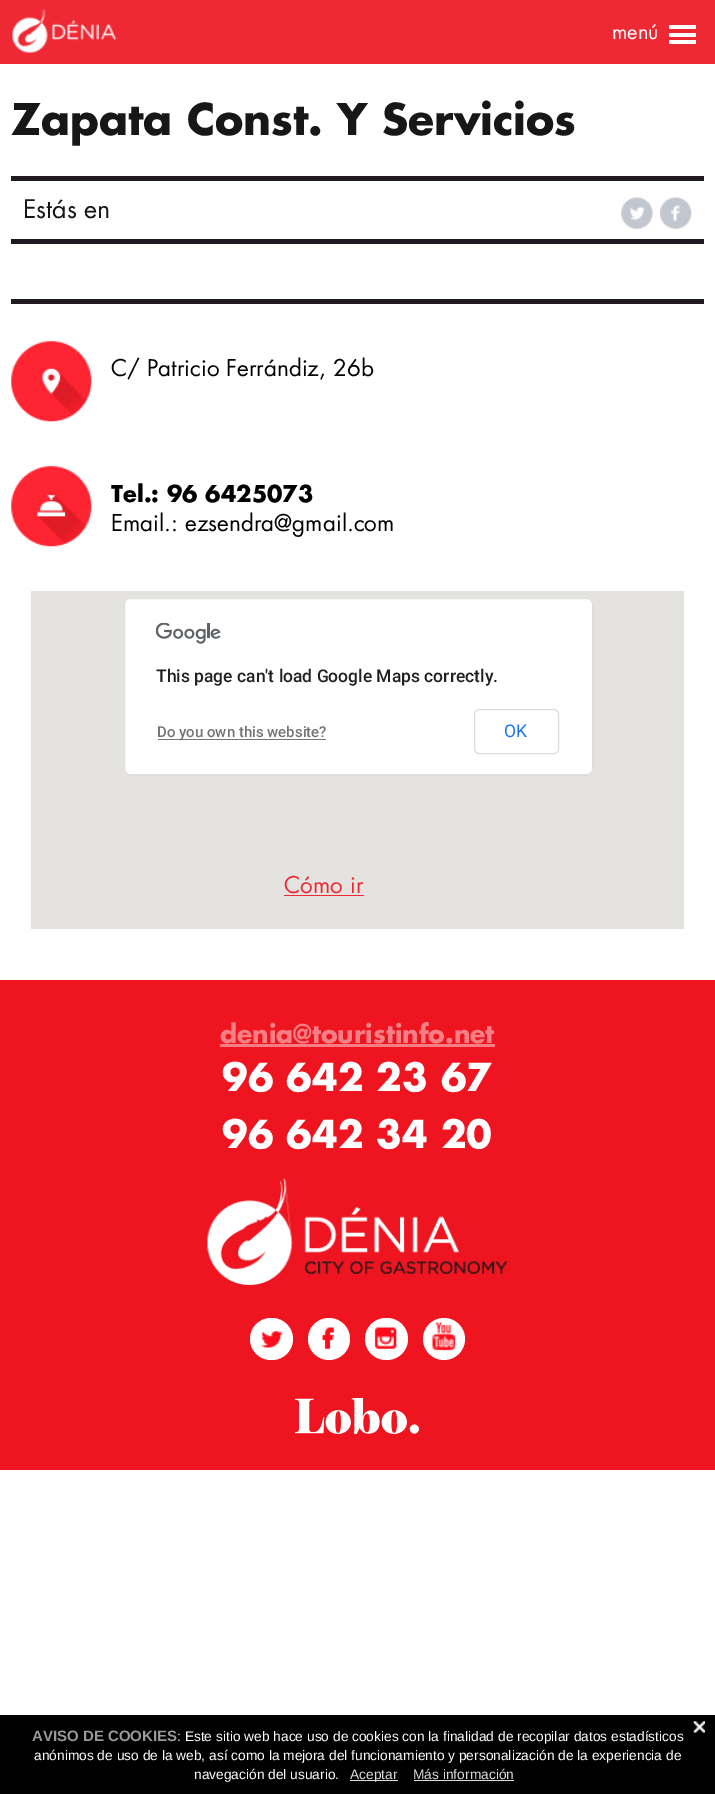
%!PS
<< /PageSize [715 1794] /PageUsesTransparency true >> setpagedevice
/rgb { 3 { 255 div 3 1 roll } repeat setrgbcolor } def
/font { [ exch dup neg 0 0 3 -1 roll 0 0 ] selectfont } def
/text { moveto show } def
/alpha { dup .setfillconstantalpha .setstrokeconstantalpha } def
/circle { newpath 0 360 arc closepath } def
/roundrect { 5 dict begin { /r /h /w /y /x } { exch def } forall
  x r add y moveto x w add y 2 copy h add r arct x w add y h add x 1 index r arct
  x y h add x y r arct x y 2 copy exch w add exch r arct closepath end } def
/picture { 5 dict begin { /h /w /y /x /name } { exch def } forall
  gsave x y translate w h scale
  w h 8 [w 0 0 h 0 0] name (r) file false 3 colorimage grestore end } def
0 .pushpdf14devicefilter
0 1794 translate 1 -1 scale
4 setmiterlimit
255 255 255 rgb
0 0 715 1794 rectfill
238 41 52 rgb
0 0 715 64 rectfill
255 255 255 rgb
669 25 27 4 rectfill
669 33 27 4 rectfill
669 40 27 4 rectfill
(img_01.rgb) 12 8 105 45 picture
32 25 32 rgb
11 176 693 5 rectfill
11 239 693 5 rectfill
(img_02.rgb) 621 197 32 32 picture
(img_03.rgb) 660 197 32 32 picture
11 299 693 5 rectfill
(img_04.rgb) 11 341 81 81 picture
(img_05.rgb) 11 466 81 81 picture
229 227 223 rgb
31 591 653 338 rectfill
255 255 255 rgb
124 598 469 177 6 roundrect fill
0.12 alpha
0 0 0 rgb
124.5 598.5 468 176 5.5 roundrect stroke
1 alpha
(img_06.rgb) 156 623 65 21 picture
117 117 117 rgb
158 739 168 1 rectfill
218 220 224 rgb
474.5 709.5 84 44 4.5 roundrect stroke
238 41 52 rgb
284 895 80 1 rectfill
238 20 32 rgb
0 980 715 490 rectfill
245 127 133 rgb
220 1044 275 3 rectfill
(img_07.rgb) 207 1178 301 107 picture
255 255 255 rgb
250 1318 43 42 21 roundrect fill
(img_08.rgb) 261 1331 22 17 picture
329 1339 21 circle fill
(img_09.rgb) 322 1327 12 22 picture
365 1318 43 42 21 roundrect fill
(img_10.rgb) 374 1327 23 22 picture
444 1339 21 circle fill
(img_11.rgb) 432 1322 24 29 picture
(img_12.rgb) 295 1398 124 36 picture
0 0 0 rgb
0 1715 715 79 rectfill
(img_13.rgb) 693 1721 12 12 picture
221 221 221 rgb
350 1780 48 1 rectfill
414 1780 100 1 rectfill
/Futura-Regular 20 font
255 255 255 rgb
(menú) 612 39 text
/Futura-Bold 42.5 font
23 23 23 rgb
(Zapata Const. Y Servicios) 11 135 text
/Futura-Regular 25 font
(Estás en) 23 218 text
/Futura-Regular 22.5 font
0 0 0 rgb
(C/ Patricio Ferrándiz, 26b) 111 376 text
/Futura-Bold 22.5 font
(Tel.: 96 6425073) 111 502 text
/Futura-Regular 22.5 font
(Email.: ezsendra@gmail.com) 111 531 text
/Roboto-Medium 17.5 font
33 33 33 rgb
(This page can't load Google Maps correctly.) 156 682 text
/Roboto-Medium 15 font
117 117 117 rgb
(Do you own this website?) 157 737 text
/Roboto-Regular 17.5 font
26 115 232 rgb
(OK) 504 737 text
/Futura-Regular 22.5 font
238 41 52 rgb
(Cómo ir) 284 893 text
/Futura-Bold 25 font
245 127 133 rgb
(denia@touristinfo.net) 220 1043 text
/Futura-Bold 37.5 font
255 255 255 rgb
(96 642 23 67) 222 1091 text
(96 642 34 20) 222 1148 text
/LiberationSans-Bold 15 font
153 153 153 rgb
(AVISO DE COOKIES) 32 1741 text
/LiberationSans-Regular 13.75 font
255 255 255 rgb
(: Este sitio web hace uso de cookies con la finalidad de recopilar datos estadísticos) 177 1741 text
(anónimos de uso de la web, así como la mejora del funcionamiento y personalización de la experiencia de) 34 1760 text
(navegación del usuario.) 194 1779 text
221 221 221 rgb
(Aceptar) 350 1779 text
(Más información) 413 1779 text
.poppdf14devicefilter showpage
